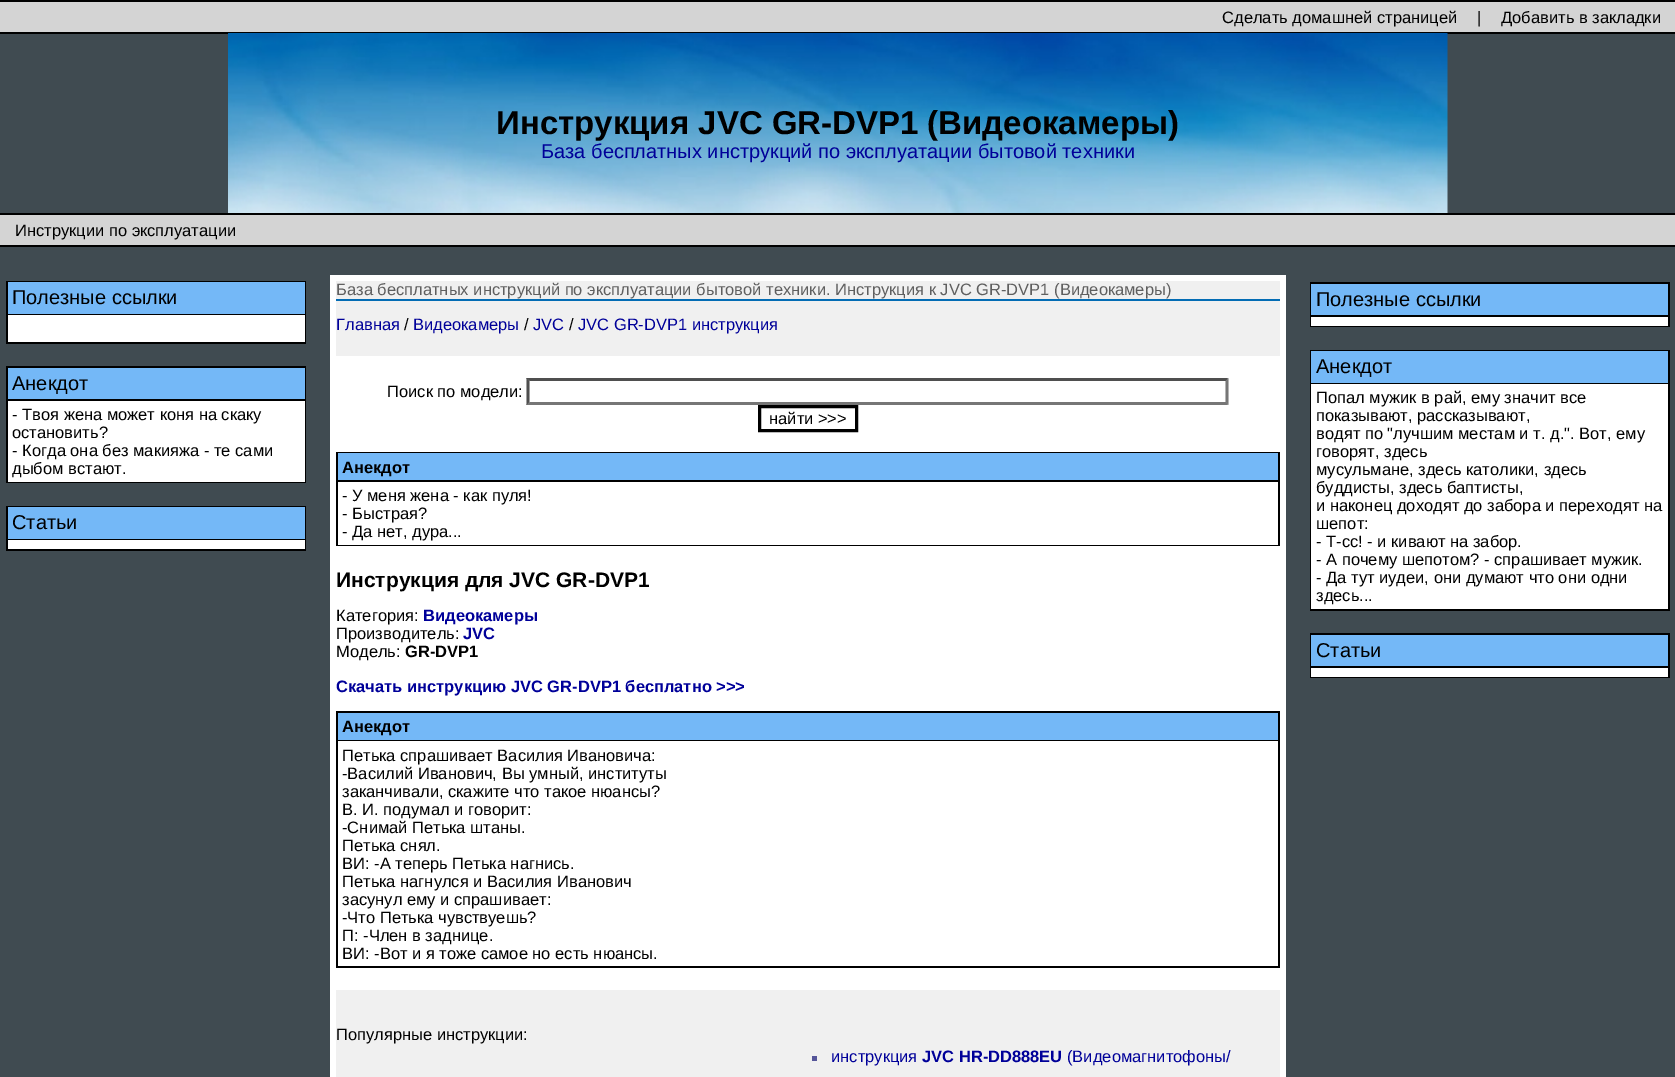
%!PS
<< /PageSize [1675 1077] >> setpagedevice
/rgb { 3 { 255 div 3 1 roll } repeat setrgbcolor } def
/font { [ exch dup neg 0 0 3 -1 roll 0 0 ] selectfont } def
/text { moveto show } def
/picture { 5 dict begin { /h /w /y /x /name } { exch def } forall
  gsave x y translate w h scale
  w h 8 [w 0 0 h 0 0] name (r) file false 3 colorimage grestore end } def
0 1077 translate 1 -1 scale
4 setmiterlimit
64 75 81 rgb
0 0 1675 1077 rectfill
0 0 0 rgb
0 0 1675 2 rectfill
212 212 212 rgb
0 2 1675 30 rectfill
0 0 0 rgb
0 32 1675 2 rectfill
(img_01.rgb) 228 33 1220 180 picture
0 213 1675 2 rectfill
212 212 212 rgb
0 215 1675 30 rectfill
0 0 0 rgb
0 245 1675 2 rectfill
6 281 300 63 rectfill
116 184 247 rgb
8 282 297 32 rectfill
255 255 255 rgb
8 315 297 27 rectfill
0 0 0 rgb
6 366 300 117 rectfill
116 184 247 rgb
8 368 297 31 rectfill
255 255 255 rgb
8 401 297 81 rectfill
0 0 0 rgb
6 506 300 45 rectfill
116 184 247 rgb
8 507 297 32 rectfill
255 255 255 rgb
8 540 297 9 rectfill
330 275 956 802 rectfill
240 240 240 rgb
336 281 944 75 rectfill
3 108 180 rgb
336 299 944 2 rectfill
79 79 79 rgb
526 378 moveto 702 0 rlineto -2 3 rlineto -696 0 rlineto closepath fill
118 118 118 rgb
1228.5 378 moveto 0 27 rlineto -3 -3 rlineto 0 -21 rlineto closepath fill
1228 405 moveto -702 0 rlineto 4 -3 rlineto 696 0 rlineto closepath fill
79 79 79 rgb
526.5 405 moveto 0 -27 rlineto 3 3 rlineto 0 21 rlineto closepath fill
0 0 0 rgb
3 setlinewidth
759.5 406.5 97 24 rectstroke
336 452 944 94 rectfill
116 184 247 rgb
338 453 940 27 rectfill
255 255 255 rgb
338 482 940 63 rectfill
0 0 0 rgb
336 711 944 257 rectfill
116 184 247 rgb
338 713 940 27 rectfill
255 255 255 rgb
338 741 940 225 rectfill
240 240 240 rgb
336 990 944 87 rectfill
85 85 153 rgb
812 1056 5 5 rectfill
0 0 0 rgb
1310 282 360 45 rectfill
116 184 247 rgb
1311 284 357 31 rectfill
255 255 255 rgb
1311 317 357 9 rectfill
0 0 0 rgb
1310 350 360 261 rectfill
116 184 247 rgb
1311 351 357 32 rectfill
255 255 255 rgb
1311 384 357 225 rectfill
0 0 0 rgb
1310 633 360 45 rectfill
116 184 247 rgb
1311 635 357 31 rectfill
255 255 255 rgb
1311 668 357 9 rectfill
/LiberationSans-Regular 16.5 font
0 0 0 rgb
(Сделать домашней страницей) 1222 23 text
(|) 1477 23 text
(Добавить в закладки) 1501 23 text
/LiberationSans-Bold 33 font
(Инструкция JVC GR-DVP1 \(Видеокамеры\)) 496 134 text
/LiberationSans-Regular 20 font
0 0 153 rgb
(База бесплатных инструкций по эксплуатации бытовой техники) 541 158 text
/LiberationSans-Regular 16.5 font
0 0 0 rgb
(Инструкции по эксплуатации) 15 236 text
/LiberationSans-Regular 20 font
(Полезные ссылки) 12 304 text
(Анекдот) 12 390 text
/LiberationSans-Regular 16.5 font
(- Твоя жена может коня на скаку) 12 420 text
(остановить?) 12 438 text
(- Когда она без макияжа - те сами) 12 456 text
(дыбом встают.) 12 474 text
/LiberationSans-Regular 20 font
(Статьи) 12 529 text
/LiberationSans-Regular 16.5 font
95 95 95 rgb
(База бесплатных инструкций по эксплуатации бытовой техники. Инструкция к JVC GR-DVP1 \(Видеокамеры\)) 336 295 text
0 0 153 rgb
(Главная) 336 330 text
0 0 0 rgb
(/) 404 330 text
0 0 153 rgb
(Видеокамеры) 413 330 text
0 0 0 rgb
(/) 524 330 text
0 0 153 rgb
(JVC) 533 330 text
0 0 0 rgb
(/) 569 330 text
0 0 153 rgb
(JVC GR-DVP1 инструкция) 578 330 text
0 0 0 rgb
(Поиск по модели:) 387 397 text
(найти >>>) 769 424 text
/LiberationSans-Bold 16.5 font
(Анекдот) 342 473 text
/LiberationSans-Regular 16.5 font
(- У меня жена - как пуля!) 342 501 text
(- Быстрая?) 342 519 text
(- Да нет, дура...) 342 537 text
/LiberationSans-Bold 21 font
(Инструкция для JVC GR-DVP1) 336 587 text
/LiberationSans-Regular 16.5 font
(Категория:) 336 621 text
/LiberationSans-Bold 16.5 font
0 0 153 rgb
(Видеокамеры) 423 621 text
/LiberationSans-Regular 16.5 font
0 0 0 rgb
(Производитель:) 336 639 text
/LiberationSans-Bold 16.5 font
0 0 153 rgb
(JVC) 463 639 text
/LiberationSans-Regular 16.5 font
0 0 0 rgb
(Модель:) 336 657 text
/LiberationSans-Bold 16.5 font
(GR-DVP1) 405 657 text
0 0 153 rgb
(Скачать инструкцию JVC GR-DVP1 бесплатно >>>) 336 692 text
0 0 0 rgb
(Анекдот) 342 732 text
/LiberationSans-Regular 16.5 font
(Петька спрашивает Василия Ивановича:) 342 761 text
(-Василий Иванович, Вы умный, институты) 342 779 text
(заканчивали, скажите что такое нюансы?) 342 797 text
(В. И. подумал и говорит:) 342 815 text
(-Снимай Петька штаны.) 342 833 text
(Петька снял.) 342 851 text
(ВИ: -А теперь Петька нагнись.) 342 869 text
(Петька нагнулся и Василия Иванович) 342 887 text
(засунул ему и спрашивает:) 342 905 text
(-Что Петька чувствуешь?) 342 923 text
(П: -Член в заднице.) 342 941 text
(ВИ: -Вот и я тоже самое но есть нюансы.) 342 959 text
(Популярные инструкции:) 336 1040 text
0 0 153 rgb
(инструкция) 831 1062 text
/LiberationSans-Bold 16.5 font
(JVC HR-DD888EU) 922 1062 text
/LiberationSans-Regular 16.5 font
(\(Видеомагнитофоны/) 1067 1062 text
/LiberationSans-Regular 20 font
0 0 0 rgb
(Полезные ссылки) 1316 306 text
(Анекдот) 1316 373 text
/LiberationSans-Regular 16.5 font
(Попал мужик в рай, ему значит все) 1316 403 text
(показывают, рассказывают,) 1316 421 text
(водят по "лучшим местам и т. д.". Вот, ему) 1316 439 text
(говорят, здесь) 1316 457 text
(мусульмане, здесь католики, здесь) 1316 475 text
(буддисты, здесь баптисты,) 1316 493 text
(и наконец доходят до забора и переходят на) 1316 511 text
(шепот:) 1316 529 text
(- Т-сс! - и кивают на забор.) 1316 547 text
(- А почему шепотом? - спрашивает мужик.) 1316 565 text
(- Да тут иудеи, они думают что они одни) 1316 583 text
(здесь...) 1316 601 text
/LiberationSans-Regular 20 font
(Статьи) 1316 657 text
showpage
